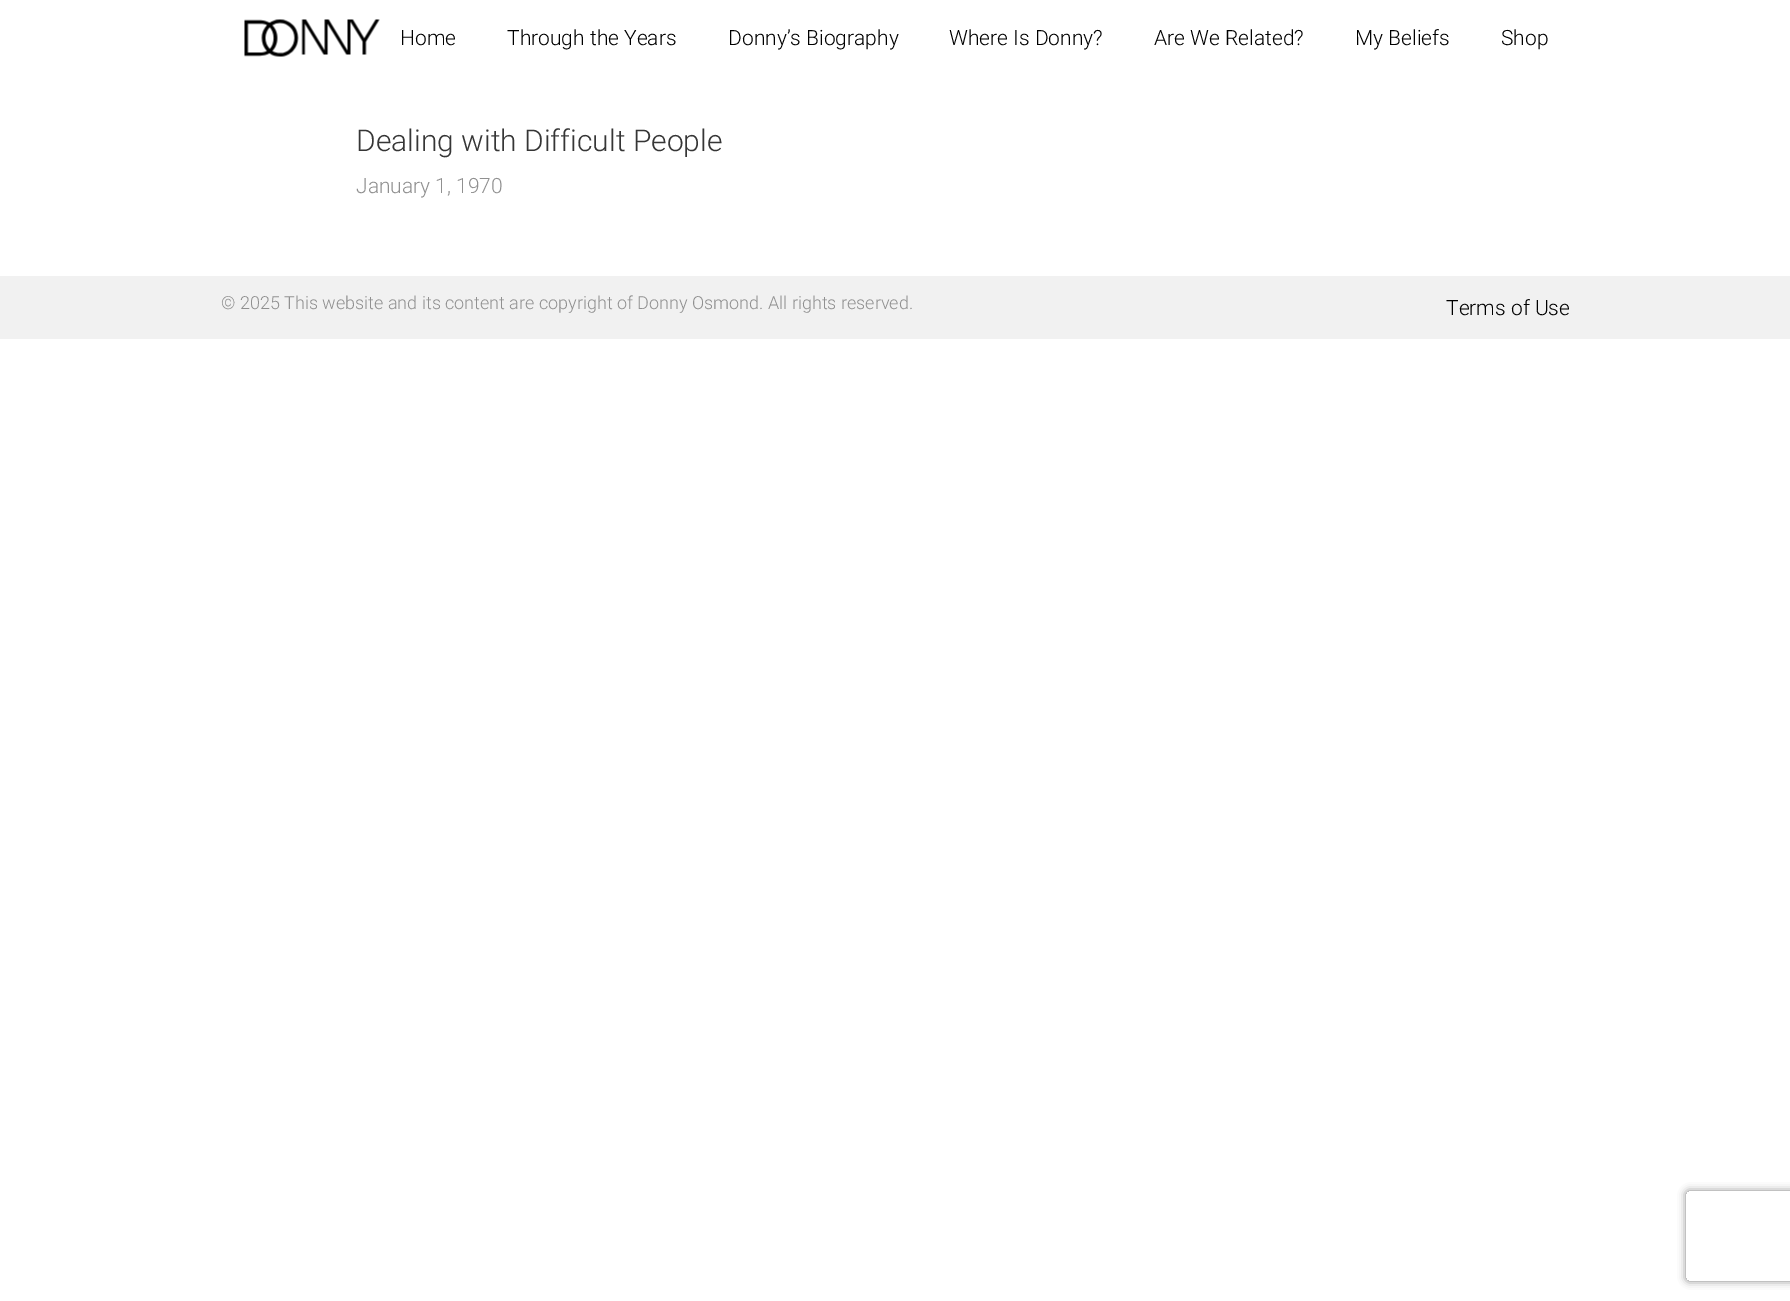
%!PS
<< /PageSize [1790 1301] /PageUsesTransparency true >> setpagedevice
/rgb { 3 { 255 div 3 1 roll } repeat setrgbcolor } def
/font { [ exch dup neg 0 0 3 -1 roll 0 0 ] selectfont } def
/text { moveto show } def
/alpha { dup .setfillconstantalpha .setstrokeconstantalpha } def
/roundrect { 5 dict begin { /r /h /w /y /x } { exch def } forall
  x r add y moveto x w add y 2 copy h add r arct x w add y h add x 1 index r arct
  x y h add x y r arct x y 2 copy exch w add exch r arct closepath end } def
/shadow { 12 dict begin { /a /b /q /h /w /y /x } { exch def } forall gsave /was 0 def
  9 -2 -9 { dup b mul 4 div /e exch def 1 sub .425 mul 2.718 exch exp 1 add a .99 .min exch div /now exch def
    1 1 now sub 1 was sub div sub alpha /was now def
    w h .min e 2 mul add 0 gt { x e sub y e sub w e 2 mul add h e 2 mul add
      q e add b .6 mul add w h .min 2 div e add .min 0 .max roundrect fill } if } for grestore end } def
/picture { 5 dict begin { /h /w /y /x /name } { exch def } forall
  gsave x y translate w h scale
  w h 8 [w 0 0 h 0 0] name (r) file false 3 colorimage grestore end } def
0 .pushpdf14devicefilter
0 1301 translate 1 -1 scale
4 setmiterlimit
255 255 255 rgb
0 0 1790 1301 rectfill
(img_01.rgb) 244 19 136 38 picture
241 241 241 rgb
0 276 1790 63 rectfill
gsave
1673 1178 moveto 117 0 rlineto 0 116 rlineto -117 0 rlineto closepath 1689 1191 moveto 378 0 rlineto 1.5 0 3 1.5 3 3 rcurveto 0 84 rlineto 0 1.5 -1.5 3 -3 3 rcurveto -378 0 rlineto -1.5 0 -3 -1.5 -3 -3 rcurveto 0 -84 rlineto 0 -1.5 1.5 -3 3 -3 rcurveto closepath eoclip newpath
128 128 128 rgb
1686 1191 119 90 3 4 1 shadow
grestore
/Roboto-Light 21 font
0 0 0 rgb
(Home) 400 45 text
(Through the Years) 507 45 text
(Donny’s Biography) 728 45 text
(Where Is Donny?) 949 45 text
(Are We Related?) 1154 45 text
(My Beliefs) 1355 45 text
(Shop) 1501 45 text
/Roboto-Light 30 font
54 54 54 rgb
(Dealing with Difficult People) 356 151 text
/Roboto-Light 21 font
144 144 144 rgb
(January 1, 1970) 356 193 text
/Roboto-Light 18 font
(© 2025 This website and its content are copyright of Donny Osmond. All rights reserved.) 221 309 text
/Roboto-Light 21 font
0 0 0 rgb
(Terms of Use) 1446 315 text
.poppdf14devicefilter showpage
